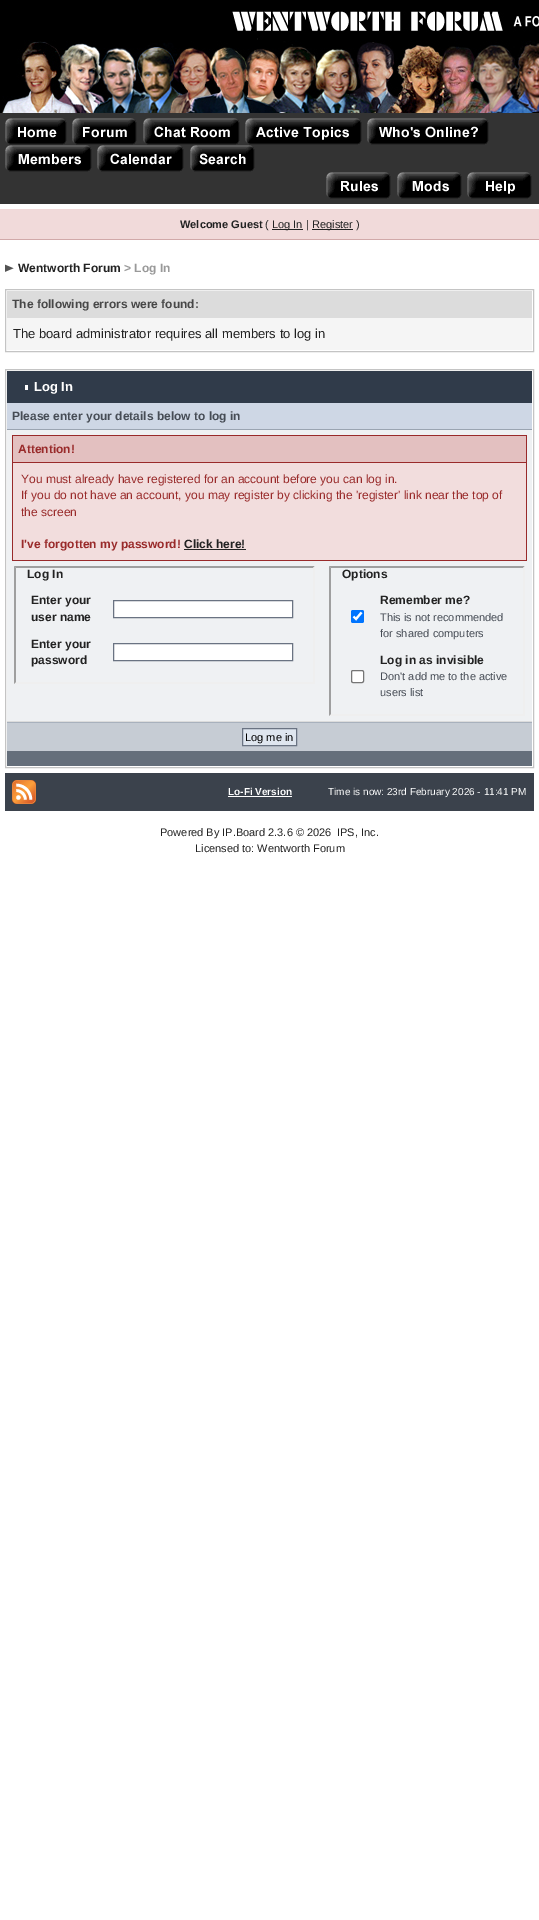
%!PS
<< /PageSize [539 1920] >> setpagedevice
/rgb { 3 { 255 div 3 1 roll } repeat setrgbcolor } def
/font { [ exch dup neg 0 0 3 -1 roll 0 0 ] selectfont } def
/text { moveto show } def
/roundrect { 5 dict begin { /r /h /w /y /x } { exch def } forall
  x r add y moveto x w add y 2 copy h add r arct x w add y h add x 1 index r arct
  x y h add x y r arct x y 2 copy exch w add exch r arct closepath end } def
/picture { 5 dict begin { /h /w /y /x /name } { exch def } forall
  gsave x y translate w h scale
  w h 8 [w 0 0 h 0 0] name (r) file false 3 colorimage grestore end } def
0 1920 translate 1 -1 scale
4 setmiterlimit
255 255 255 rgb
0 0 539 1920 rectfill
0 0 0 rgb
0 0 539 113 rectfill
(img_01.rgb) 2 11 537 102 picture
51 51 51 rgb
0 113 539 91 rectfill
(img_02.rgb) 5 118 62 27 picture
(img_03.rgb) 72 118 65 27 picture
(img_04.rgb) 143 118 97 27 picture
(img_05.rgb) 245 118 117 27 picture
(img_06.rgb) 367 118 122 27 picture
(img_07.rgb) 5 145 87 27 picture
(img_08.rgb) 97 145 87 27 picture
(img_09.rgb) 190 145 65 27 picture
(img_10.rgb) 326 172 65 27 picture
(img_11.rgb) 397 172 65 27 picture
(img_12.rgb) 467 172 65 27 picture
241 218 218 rgb
0 209 539 30 rectfill
209 169 169 rgb
0 239 539 1 rectfill
34 34 34 rgb
272 229 31 1 rectfill
312 229 41 1 rectfill
(img_13.rgb) 5 264 9 8 picture
196 196 196 rgb
5.5 289.5 528 62 rectstroke
220 220 220 rgb
7 291 525 27 rectfill
245 245 245 rgb
7 318 525 32 rectfill
196 196 196 rgb
5.5 369.5 528 398 rectstroke
48 59 74 rgb
7 371 525 32 rectfill
255 255 255 rgb
25 385 3 5 rectfill
239 241 243 rgb
7 430 525 131 rectfill
206 215 229 rgb
7 403 525 26 rectfill
154 164 177 rgb
7 429 525 1 rectfill
242 221 221 rgb
13 463 513 97 rectfill
153 42 42 rgb
526 435 1 126 rectfill
12 560 515 1 rectfill
12 435 1 126 rectfill
227 192 192 rgb
13 436 513 26 rectfill
153 42 42 rgb
13 435 513 1 rectfill
13 462 513 1 rectfill
34 34 34 rgb
184 549 62 1 rectfill
239 241 243 rgb
7 561 525 160 rectfill
220 220 220 rgb
7 721 525 1 rectfill
159 159 159 rgb
14 566 moveto 301 0 rlineto -2 2 rlineto -297 0 rlineto closepath fill
239 239 239 rgb
315 566 moveto 0 118 rlineto -2 -2 rlineto 0 -114 rlineto closepath fill
315 684 moveto -301 0 rlineto 2 -2 rlineto 297 0 rlineto closepath fill
159 159 159 rgb
14 684 moveto 0 -118 rlineto 2 2 rlineto 0 114 rlineto closepath fill
255 255 255 rgb
113.5 600.5 moveto 179 0 rlineto 0 17 rlineto -179 0 rlineto closepath gsave fill grestore
106 115 130 rgb
stroke
255 255 255 rgb
113.5 643.5 moveto 179 0 rlineto 0 17 rlineto -179 0 rlineto closepath gsave fill grestore
106 115 130 rgb
stroke
159 159 159 rgb
329 566 moveto 196 0 rlineto -2 2 rlineto -192 0 rlineto closepath fill
239 239 239 rgb
525 566 moveto 0 150 rlineto -2 -2 rlineto 0 -146 rlineto closepath fill
525 716 moveto -196 0 rlineto 2 -2 rlineto 192 0 rlineto closepath fill
159 159 159 rgb
329 716 moveto 0 -150 rlineto 2 2 rlineto 0 146 rlineto closepath fill
0 117 255 rgb
351 610 13 13 2 roundrect fill
255 255 255 rgb
2.1 setlinewidth
353.5 616.5 moveto 2.5 2.5 rlineto 5.5 -6.5 rlineto stroke
351.5 670.5 12 12 1.5 roundrect gsave fill grestore
118 118 118 rgb
1 setlinewidth
stroke
198 204 212 rgb
7 723 525 28 rectfill
168 177 189 rgb
7 722 525 1 rectfill
223 230 239 rgb
242.5 728.5 moveto 54 0 rlineto 0 17 rlineto -54 0 rlineto closepath gsave fill grestore
106 115 130 rgb
stroke
101 111 123 rgb
7 751 525 15 rectfill
59 66 76 rgb
5 773 529 38 rectfill
(img_14.rgb) 12 780 24 24 picture
255 255 255 rgb
228 796 64 1 rectfill
/LiberationSans-Bold 11 font
34 34 34 rgb
(Welcome Guest) 180 228 text
/LiberationSans-Regular 11 font
(\() 265 228 text
(Log In |) 272 228 text
(Register \)) 312 228 text
/LiberationSans-Bold 12 font
(Wentworth Forum) 18 272 text
153 153 153 rgb
(> Log In) 124 272 text
71 71 71 rgb
(The following errors were found:) 12 308 text
/LiberationSans-Regular 13 font
34 34 34 rgb
(The board administrator requires all members to log in) 13 338 text
/LiberationSans-Bold 13 font
255 255 255 rgb
(Log In) 34 391 text
/LiberationSans-Bold 12 font
70 76 85 rgb
(Please enter your details below to log in) 12 420 text
153 42 42 rgb
(Attention!) 18 453 text
/LiberationSans-Regular 12 font
(You must already have registered for an account before you can log in.) 21 483 text
(If you do not have an account, you may register by clicking the 'register' link near the top of) 21 499 text
(the screen) 21 516 text
/LiberationSans-Bold 12 font
(I've forgotten my password!) 21 548 text
34 34 34 rgb
(Click here!) 184 548 text
(Log In) 27 578 text
(Enter your) 31 604 text
(user name) 31 621 text
(Enter your) 31 648 text
(password) 31 664 text
(Options) 342 578 text
(Remember me?) 380 604 text
/LiberationSans-Regular 11 font
70 76 85 rgb
(This is not recommended) 380 621 text
(for shared computers) 380 637 text
/LiberationSans-Bold 12 font
34 34 34 rgb
(Log in as invisible) 380 664 text
/LiberationSans-Regular 11 font
70 76 85 rgb
(Don't add me to the active) 380 680 text
(users list) 380 696 text
0 0 0 rgb
(Log me in) 245 741 text
/LiberationSans-Bold 10 font
255 255 255 rgb
(Lo-Fi Version) 228 795 text
/LiberationSans-Regular 10 font
(Time is now: 23rd February 2026 - 11:41 PM) 328 795 text
/LiberationSans-Regular 11 font
34 34 34 rgb
(Powered By IP.Board 2.3.6 © 2026) 160 836 text
(IPS, Inc.) 337 836 text
(Licensed to: Wentworth Forum) 195 852 text
showpage
